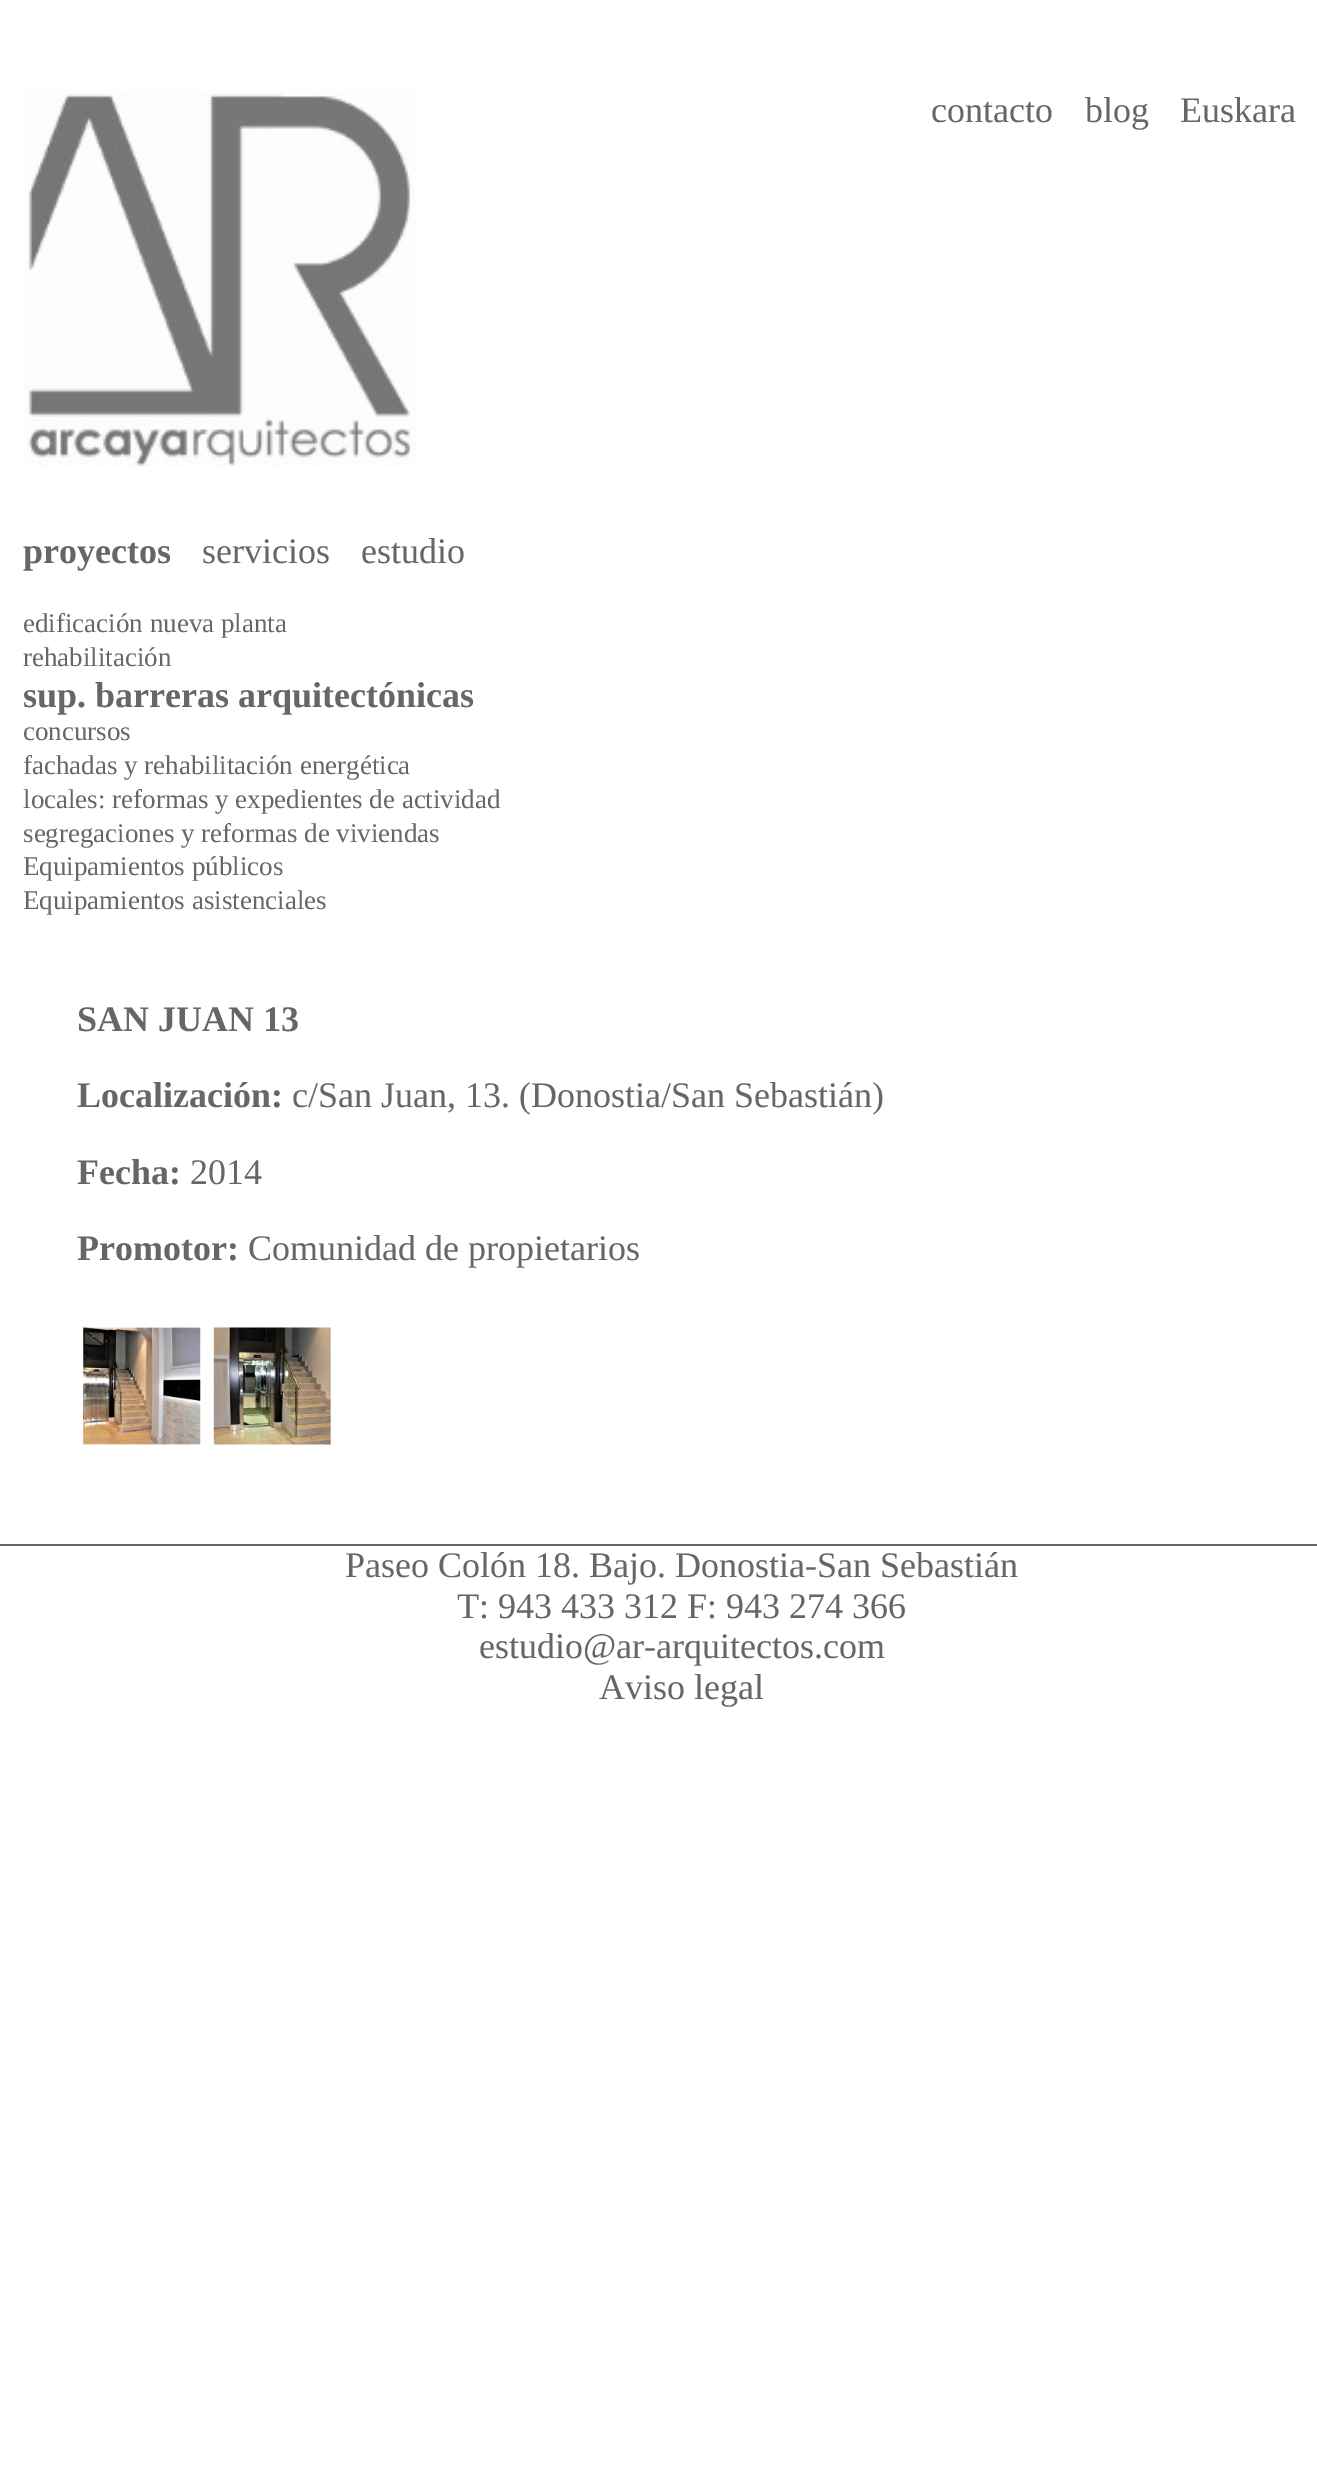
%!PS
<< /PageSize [1317 2468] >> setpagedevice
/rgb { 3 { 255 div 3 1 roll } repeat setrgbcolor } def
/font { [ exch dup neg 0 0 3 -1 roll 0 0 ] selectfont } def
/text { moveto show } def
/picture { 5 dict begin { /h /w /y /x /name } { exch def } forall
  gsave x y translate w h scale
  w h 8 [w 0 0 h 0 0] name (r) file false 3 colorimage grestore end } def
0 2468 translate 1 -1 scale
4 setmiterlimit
255 255 255 rgb
0 0 1317 2468 rectfill
(img_01.rgb) 23 90 393 376 picture
(img_02.rgb) 83 1327 118 118 picture
(img_03.rgb) 213 1327 118 118 picture
102 102 102 rgb
0 1544 1317 2 rectfill
/LiberationSerif-Regular 36 font
(contacto) 931 122 text
(blog) 1085 122 text
(Euskara) 1180 122 text
/LiberationSerif-Bold 36 font
(proyectos) 23 563 text
/LiberationSerif-Regular 36 font
(servicios) 202 563 text
(estudio) 361 563 text
/LiberationSerif-Regular 27 font
(edificación nueva planta) 23 632 text
(rehabilitación) 23 666 text
/LiberationSerif-Bold 36 font
(sup. barreras arquitectónicas) 23 707 text
/LiberationSerif-Regular 27 font
(concursos) 23 740 text
(fachadas y rehabilitación energética) 23 774 text
(locales: reformas y expedientes de actividad) 23 808 text
(segregaciones y reformas de viviendas) 23 842 text
(Equipamientos públicos) 23 875 text
(Equipamientos asistenciales) 23 909 text
/LiberationSerif-Bold 36 font
(SAN JUAN 13) 77 1031 text
(Localización:) 77 1107 text
/LiberationSerif-Regular 36 font
(c/San Juan, 13. \(Donostia/San Sebastián\)) 292 1107 text
/LiberationSerif-Bold 36 font
(Fecha:) 77 1184 text
/LiberationSerif-Regular 36 font
(2014) 190 1184 text
/LiberationSerif-Bold 36 font
(Promotor:) 77 1260 text
/LiberationSerif-Regular 36 font
(Comunidad de propietarios) 248 1260 text
(Paseo Colón 18. Bajo. Donostia-San Sebastián) 345 1577 text
(T: 943 433 312 F: 943 274 366) 457 1618 text
(estudio@ar-arquitectos.com) 479 1658 text
(Aviso legal) 599 1699 text
showpage
